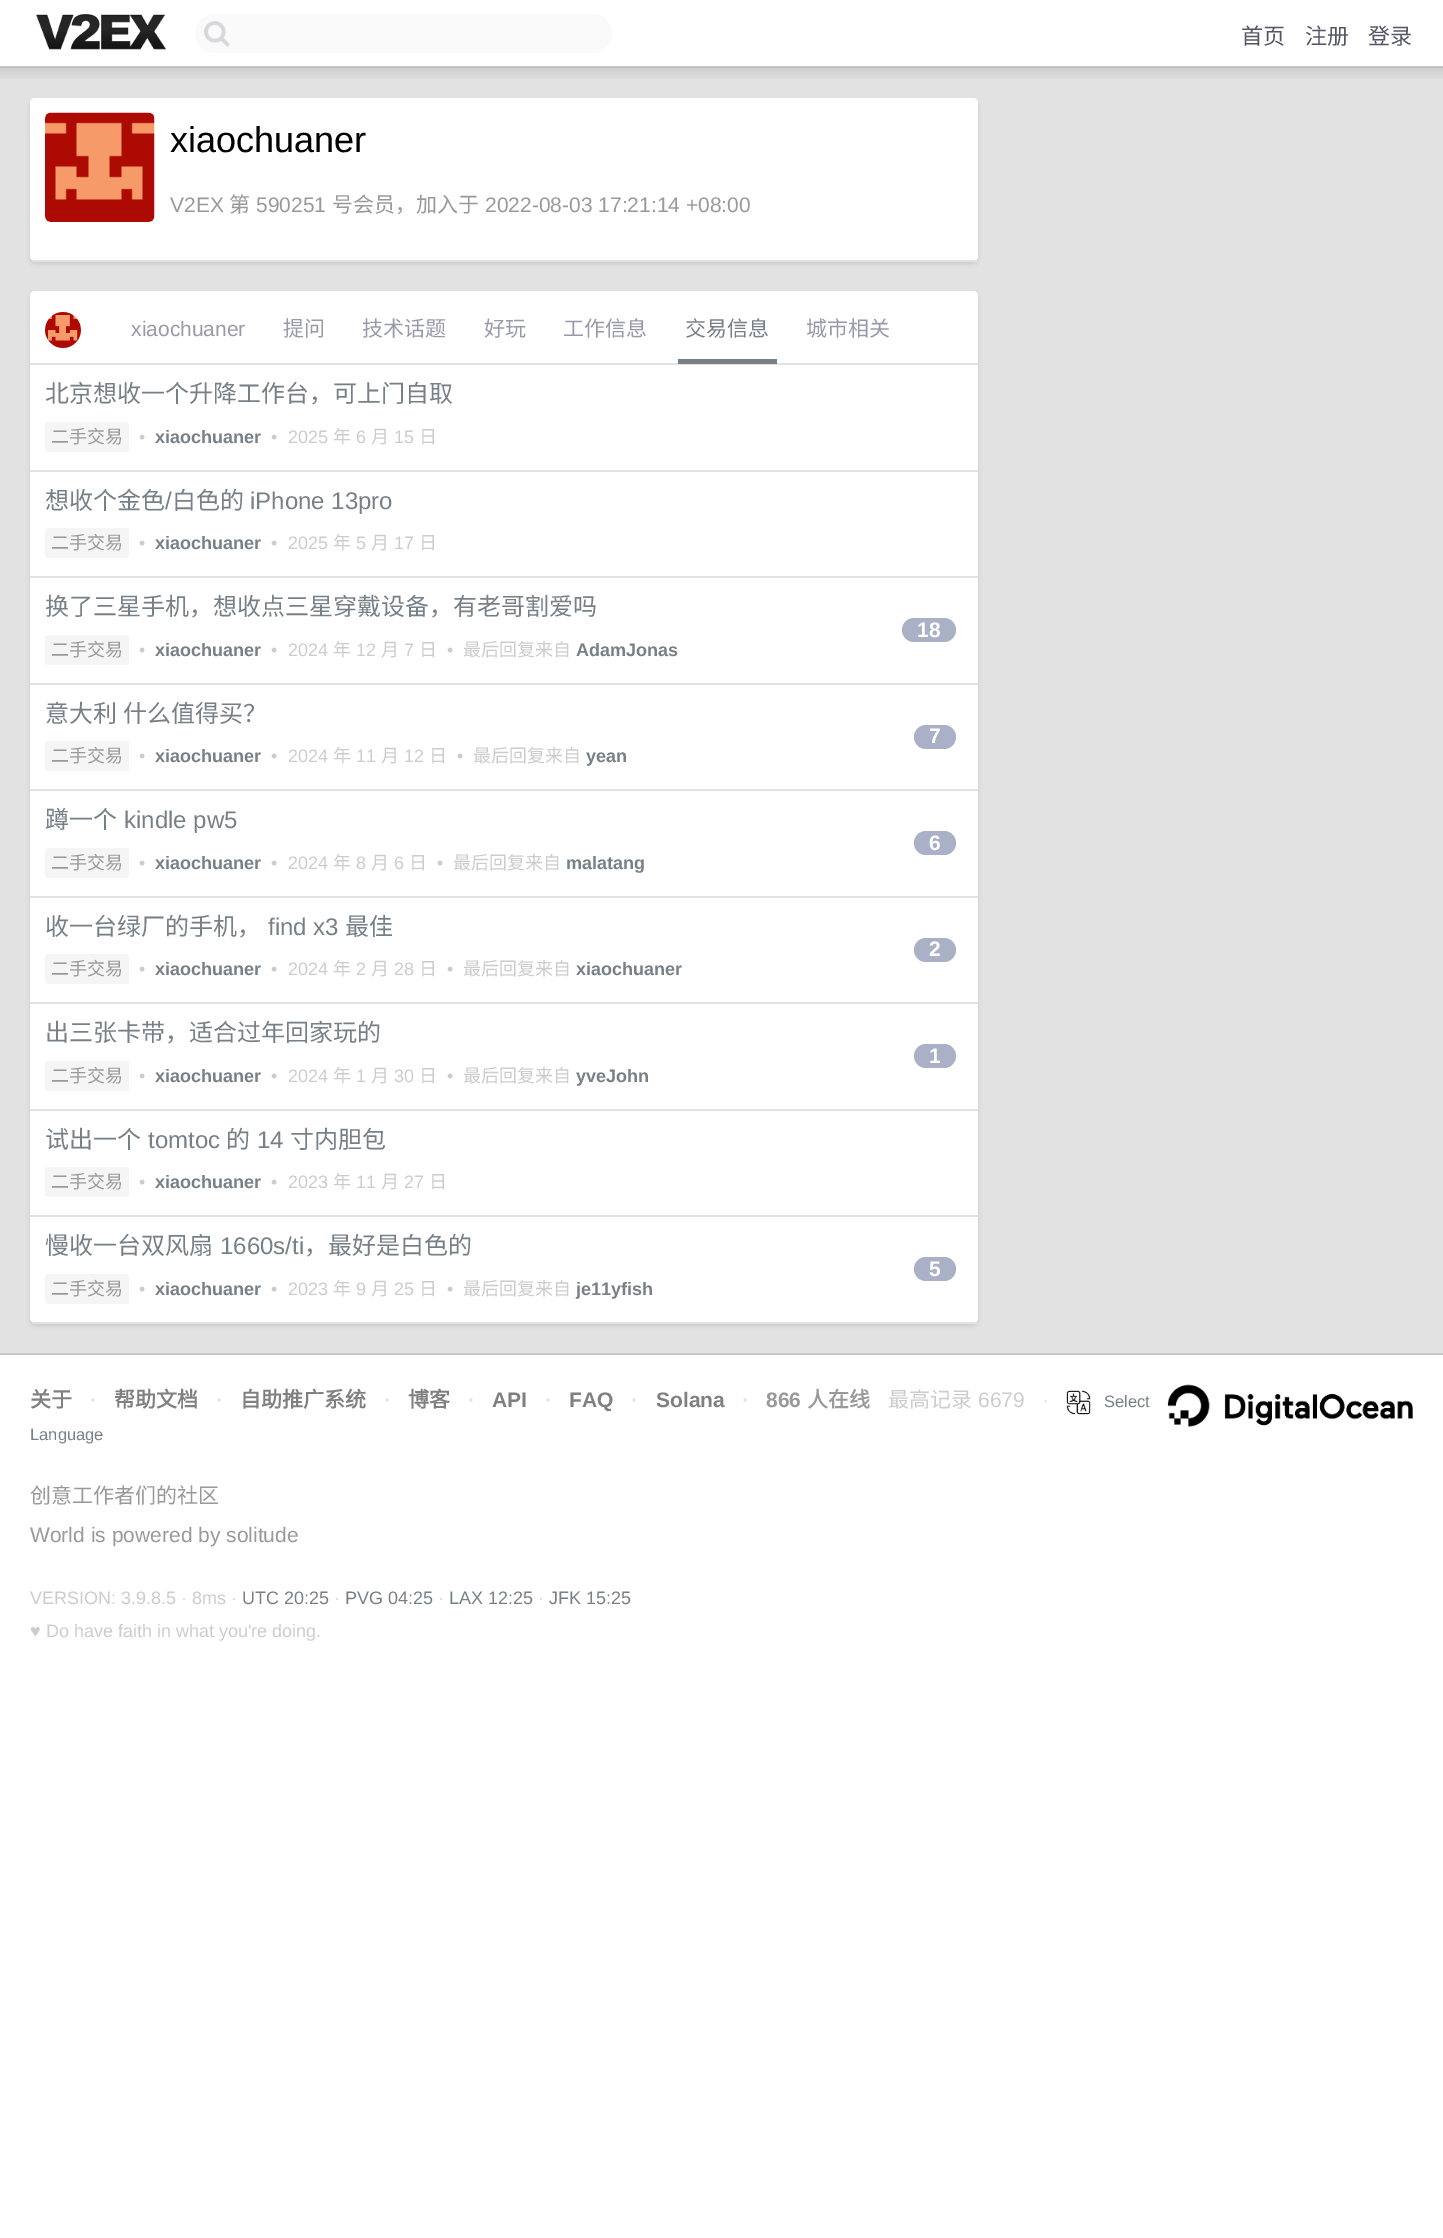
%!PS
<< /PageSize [1443 2238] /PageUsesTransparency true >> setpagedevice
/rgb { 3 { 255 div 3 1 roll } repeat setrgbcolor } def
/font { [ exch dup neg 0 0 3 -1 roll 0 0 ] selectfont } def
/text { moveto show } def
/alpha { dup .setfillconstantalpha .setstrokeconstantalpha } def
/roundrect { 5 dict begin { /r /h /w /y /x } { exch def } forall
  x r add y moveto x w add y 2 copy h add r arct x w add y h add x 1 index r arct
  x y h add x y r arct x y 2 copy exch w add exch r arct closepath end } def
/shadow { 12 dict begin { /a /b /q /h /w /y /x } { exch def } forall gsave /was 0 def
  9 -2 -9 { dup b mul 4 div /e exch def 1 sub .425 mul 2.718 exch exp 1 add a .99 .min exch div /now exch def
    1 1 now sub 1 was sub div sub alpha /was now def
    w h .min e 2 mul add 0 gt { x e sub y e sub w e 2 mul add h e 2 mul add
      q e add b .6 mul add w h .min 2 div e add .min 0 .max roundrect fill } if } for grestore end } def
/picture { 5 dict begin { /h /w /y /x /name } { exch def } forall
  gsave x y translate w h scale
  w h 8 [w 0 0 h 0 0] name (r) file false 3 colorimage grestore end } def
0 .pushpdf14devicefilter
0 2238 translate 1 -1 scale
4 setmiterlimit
255 255 255 rgb
0 0 1443 2238 rectfill
199 199 199 rgb
0 66 1443 2 rectfill
(img_01.rgb) 36 14 130 36 picture
250 250 250 rgb
195 14 417 39 19.5 roundrect fill
(img_02.rgb) 204 21 26 26 picture
226 226 226 rgb
0 68 1443 1285 rectfill
(img_03.rgb) 0 67 1443 12 picture
0 0 0 rgb
30 101 948 163 5 2 0.1 shadow
255 255 255 rgb
30 98 948 163 5 roundrect fill
226 226 226 rgb
33 260 944 2 rectfill
(img_04.rgb) 45 112 110 110 picture
0 0 0 rgb
30 294 948 1032 5 2 0.1 shadow
255 255 255 rgb
30 291 948 1032 5 roundrect fill
226 226 226 rgb
33 1322 944 2 rectfill
30 363 948 2 rectfill
(img_05.rgb) 45 312 36 36 picture
119 128 135 rgb
678 359 99 5 rectfill
226 226 226 rgb
30 470 948 2 rectfill
245 245 245 rgb
45 422 84 30 3 roundrect fill
226 226 226 rgb
30 576 948 2 rectfill
245 245 245 rgb
45 528 84 30 3 roundrect fill
226 226 226 rgb
30 683 948 2 rectfill
245 245 245 rgb
45 635 84 30 3 roundrect fill
170 176 198 rgb
902 618 54 24 12 roundrect fill
226 226 226 rgb
30 789 948 2 rectfill
245 245 245 rgb
45 741 84 30 3 roundrect fill
170 176 198 rgb
914 725 42 24 12 roundrect fill
226 226 226 rgb
30 896 948 2 rectfill
245 245 245 rgb
45 848 84 30 3 roundrect fill
170 176 198 rgb
914 831 42 24 12 roundrect fill
226 226 226 rgb
30 1002 948 2 rectfill
245 245 245 rgb
45 954 84 30 3 roundrect fill
170 176 198 rgb
914 938 42 24 12 roundrect fill
226 226 226 rgb
30 1109 948 2 rectfill
245 245 245 rgb
45 1061 84 30 3 roundrect fill
170 176 198 rgb
914 1044 42 24 12 roundrect fill
226 226 226 rgb
30 1215 948 2 rectfill
245 245 245 rgb
45 1167 84 30 3 roundrect fill
45 1274 84 30 3 roundrect fill
170 176 198 rgb
914 1257 42 24 12 roundrect fill
199 199 199 rgb
0 1353 1443 2 rectfill
(img_06.rgb) 1066 1390 25 25 picture
(img_07.rgb) 1167 1384 246 43 picture
/NotoSansCJKSC-Regular 22 font
85 85 102 rgb
(首页) 1241 44 text
(注册) 1305 44 text
(登录) 1368 44 text
/LiberationSans-Regular 36 font
0 0 0 rgb
(xiaochuaner) 170 152 text
/LiberationSans-Regular 21 font
153 153 153 rgb
(V2EX) 170 212 text
/NotoSansCJKSC-Regular 21 font
(第) 229 212 text
/LiberationSans-Regular 21 font
(590251) 256 212 text
/NotoSansCJKSC-Regular 21 font
(号会员，加入于) 332 212 text
/LiberationSans-Regular 21 font
(2022-08-03 17:21:14 +08:00) 485 212 text
153 153 170 rgb
(xiaochuaner) 131 336 text
/NotoSansCJKSC-Regular 21 font
(提问) 283 336 text
(技术话题) 362 336 text
(好玩) 484 336 text
(工作信息) 563 336 text
119 128 135 rgb
(交易信息) 685 336 text
153 153 170 rgb
(城市相关) 806 336 text
/NotoSansCJKSC-Regular 24 font
119 128 135 rgb
(北京想收一个升降工作台，可上门自取) 45 402 text
/NotoSansCJKSC-Regular 18 font
153 153 153 rgb
(二手交易) 51 443 text
/LiberationSans-Regular 18 font
204 204 204 rgb
(•) 139 443 text
/LiberationSans-Bold 18 font
119 128 135 rgb
(xiaochuaner) 155 443 text
/LiberationSans-Regular 18 font
204 204 204 rgb
(•) 271 443 text
(2025) 288 443 text
/NotoSansCJKSC-Regular 18 font
(年) 333 443 text
/LiberationSans-Regular 18 font
(6) 356 443 text
/NotoSansCJKSC-Regular 18 font
(月) 371 443 text
/LiberationSans-Regular 18 font
(15) 394 443 text
/NotoSansCJKSC-Regular 18 font
(日) 419 443 text
/NotoSansCJKSC-Regular 24 font
119 128 135 rgb
(想收个金色) 45 509 text
/LiberationSans-Regular 24 font
(/) 165 509 text
/NotoSansCJKSC-Regular 24 font
(白色的) 172 509 text
/LiberationSans-Regular 24 font
(iPhone 13pro) 250 509 text
/NotoSansCJKSC-Regular 18 font
153 153 153 rgb
(二手交易) 51 549 text
/LiberationSans-Regular 18 font
204 204 204 rgb
(•) 139 549 text
/LiberationSans-Bold 18 font
119 128 135 rgb
(xiaochuaner) 155 549 text
/LiberationSans-Regular 18 font
204 204 204 rgb
(•) 271 549 text
(2025) 288 549 text
/NotoSansCJKSC-Regular 18 font
(年) 333 549 text
/LiberationSans-Regular 18 font
(5) 356 549 text
/NotoSansCJKSC-Regular 18 font
(月) 371 549 text
/LiberationSans-Regular 18 font
(17) 394 549 text
/NotoSansCJKSC-Regular 18 font
(日) 419 549 text
/NotoSansCJKSC-Regular 24 font
119 128 135 rgb
(换了三星手机，想收点三星穿戴设备，有老哥割爱吗) 45 615 text
/NotoSansCJKSC-Regular 18 font
153 153 153 rgb
(二手交易) 51 656 text
/LiberationSans-Regular 18 font
204 204 204 rgb
(•) 139 656 text
/LiberationSans-Bold 18 font
119 128 135 rgb
(xiaochuaner) 155 656 text
/LiberationSans-Regular 18 font
204 204 204 rgb
(•) 271 656 text
(2024) 288 656 text
/NotoSansCJKSC-Regular 18 font
(年) 333 656 text
/LiberationSans-Regular 18 font
(12) 356 656 text
/NotoSansCJKSC-Regular 18 font
(月) 381 656 text
/LiberationSans-Regular 18 font
(7) 404 656 text
/NotoSansCJKSC-Regular 18 font
(日) 419 656 text
/LiberationSans-Regular 18 font
(•) 447 656 text
/NotoSansCJKSC-Regular 18 font
(最后回复来自) 463 656 text
/LiberationSans-Bold 18 font
119 128 135 rgb
(AdamJonas) 576 656 text
/LiberationSans-Bold 21 font
255 255 255 rgb
(18) 917 637 text
/NotoSansCJKSC-Regular 24 font
119 128 135 rgb
45 722 moveto 1 0 32 (意大利 什么值得买？) widthshow
/NotoSansCJKSC-Regular 18 font
153 153 153 rgb
(二手交易) 51 762 text
/LiberationSans-Regular 18 font
204 204 204 rgb
(•) 139 762 text
/LiberationSans-Bold 18 font
119 128 135 rgb
(xiaochuaner) 155 762 text
/LiberationSans-Regular 18 font
204 204 204 rgb
(•) 271 762 text
(2024) 288 762 text
/NotoSansCJKSC-Regular 18 font
(年) 333 762 text
/LiberationSans-Regular 18 font
(11) 356 762 text
/NotoSansCJKSC-Regular 18 font
(月) 381 762 text
/LiberationSans-Regular 18 font
(12) 404 762 text
/NotoSansCJKSC-Regular 18 font
(日) 429 762 text
/LiberationSans-Regular 18 font
(•) 457 762 text
/NotoSansCJKSC-Regular 18 font
(最后回复来自) 473 762 text
/LiberationSans-Bold 18 font
119 128 135 rgb
(yean) 586 762 text
/LiberationSans-Bold 21 font
255 255 255 rgb
(7) 929 743 text
/NotoSansCJKSC-Regular 24 font
119 128 135 rgb
(蹲一个) 45 828 text
/LiberationSans-Regular 24 font
(kindle pw5) 124 828 text
/NotoSansCJKSC-Regular 18 font
153 153 153 rgb
(二手交易) 51 869 text
/LiberationSans-Regular 18 font
204 204 204 rgb
(•) 139 869 text
/LiberationSans-Bold 18 font
119 128 135 rgb
(xiaochuaner) 155 869 text
/LiberationSans-Regular 18 font
204 204 204 rgb
(•) 271 869 text
(2024) 288 869 text
/NotoSansCJKSC-Regular 18 font
(年) 333 869 text
/LiberationSans-Regular 18 font
(8) 356 869 text
/NotoSansCJKSC-Regular 18 font
(月) 371 869 text
/LiberationSans-Regular 18 font
(6) 394 869 text
/NotoSansCJKSC-Regular 18 font
(日) 409 869 text
/LiberationSans-Regular 18 font
(•) 437 869 text
/NotoSansCJKSC-Regular 18 font
(最后回复来自) 453 869 text
/LiberationSans-Bold 18 font
119 128 135 rgb
(malatang) 566 869 text
/LiberationSans-Bold 21 font
255 255 255 rgb
(6) 929 850 text
/NotoSansCJKSC-Regular 24 font
119 128 135 rgb
(收一台绿厂的手机，) 45 935 text
/LiberationSans-Regular 24 font
(find x3) 268 935 text
/NotoSansCJKSC-Regular 24 font
(最佳) 345 935 text
/NotoSansCJKSC-Regular 18 font
153 153 153 rgb
(二手交易) 51 975 text
/LiberationSans-Regular 18 font
204 204 204 rgb
(•) 139 975 text
/LiberationSans-Bold 18 font
119 128 135 rgb
(xiaochuaner) 155 975 text
/LiberationSans-Regular 18 font
204 204 204 rgb
(•) 271 975 text
(2024) 288 975 text
/NotoSansCJKSC-Regular 18 font
(年) 333 975 text
/LiberationSans-Regular 18 font
(2) 356 975 text
/NotoSansCJKSC-Regular 18 font
(月) 371 975 text
/LiberationSans-Regular 18 font
(28) 394 975 text
/NotoSansCJKSC-Regular 18 font
(日) 419 975 text
/LiberationSans-Regular 18 font
(•) 447 975 text
/NotoSansCJKSC-Regular 18 font
(最后回复来自) 463 975 text
/LiberationSans-Bold 18 font
119 128 135 rgb
(xiaochuaner) 576 975 text
/LiberationSans-Bold 21 font
255 255 255 rgb
(2) 929 956 text
/NotoSansCJKSC-Regular 24 font
119 128 135 rgb
(出三张卡带，适合过年回家玩的) 45 1041 text
/NotoSansCJKSC-Regular 18 font
153 153 153 rgb
(二手交易) 51 1082 text
/LiberationSans-Regular 18 font
204 204 204 rgb
(•) 139 1082 text
/LiberationSans-Bold 18 font
119 128 135 rgb
(xiaochuaner) 155 1082 text
/LiberationSans-Regular 18 font
204 204 204 rgb
(•) 271 1082 text
(2024) 288 1082 text
/NotoSansCJKSC-Regular 18 font
(年) 333 1082 text
/LiberationSans-Regular 18 font
(1) 356 1082 text
/NotoSansCJKSC-Regular 18 font
(月) 371 1082 text
/LiberationSans-Regular 18 font
(30) 394 1082 text
/NotoSansCJKSC-Regular 18 font
(日) 419 1082 text
/LiberationSans-Regular 18 font
(•) 447 1082 text
/NotoSansCJKSC-Regular 18 font
(最后回复来自) 463 1082 text
/LiberationSans-Bold 18 font
119 128 135 rgb
(yveJohn) 576 1082 text
/LiberationSans-Bold 21 font
255 255 255 rgb
(1) 929 1063 text
/NotoSansCJKSC-Regular 24 font
119 128 135 rgb
(试出一个) 45 1148 text
/LiberationSans-Regular 24 font
(tomtoc) 148 1148 text
/NotoSansCJKSC-Regular 24 font
(的) 226 1148 text
/LiberationSans-Regular 24 font
(14) 257 1148 text
/NotoSansCJKSC-Regular 24 font
(寸内胆包) 290 1148 text
/NotoSansCJKSC-Regular 18 font
153 153 153 rgb
(二手交易) 51 1188 text
/LiberationSans-Regular 18 font
204 204 204 rgb
(•) 139 1188 text
/LiberationSans-Bold 18 font
119 128 135 rgb
(xiaochuaner) 155 1188 text
/LiberationSans-Regular 18 font
204 204 204 rgb
(•) 271 1188 text
(2023) 288 1188 text
/NotoSansCJKSC-Regular 18 font
(年) 333 1188 text
/LiberationSans-Regular 18 font
(11) 356 1188 text
/NotoSansCJKSC-Regular 18 font
(月) 381 1188 text
/LiberationSans-Regular 18 font
(27) 404 1188 text
/NotoSansCJKSC-Regular 18 font
(日) 429 1188 text
/NotoSansCJKSC-Regular 24 font
119 128 135 rgb
(慢收一台双风扇) 45 1254 text
/LiberationSans-Regular 24 font
(1660s/ti) 220 1254 text
/NotoSansCJKSC-Regular 24 font
(，最好是白色的) 304 1254 text
/NotoSansCJKSC-Regular 18 font
153 153 153 rgb
(二手交易) 51 1295 text
/LiberationSans-Regular 18 font
204 204 204 rgb
(•) 139 1295 text
/LiberationSans-Bold 18 font
119 128 135 rgb
(xiaochuaner) 155 1295 text
/LiberationSans-Regular 18 font
204 204 204 rgb
(•) 271 1295 text
(2023) 288 1295 text
/NotoSansCJKSC-Regular 18 font
(年) 333 1295 text
/LiberationSans-Regular 18 font
(9) 356 1295 text
/NotoSansCJKSC-Regular 18 font
(月) 371 1295 text
/LiberationSans-Regular 18 font
(25) 394 1295 text
/NotoSansCJKSC-Regular 18 font
(日) 419 1295 text
/LiberationSans-Regular 18 font
(•) 447 1295 text
/NotoSansCJKSC-Regular 18 font
(最后回复来自) 463 1295 text
/LiberationSans-Bold 18 font
119 128 135 rgb
(je11yfish) 576 1295 text
/LiberationSans-Bold 21 font
255 255 255 rgb
(5) 929 1276 text
/NotoSansCJKSC-Bold 21 font
128 128 128 rgb
(关于) 30 1407 text
/LiberationSans-Bold 21 font
226 226 226 rgb
(·) 90 1407 text
/NotoSansCJKSC-Bold 21 font
128 128 128 rgb
(帮助文档) 114 1407 text
/LiberationSans-Bold 21 font
226 226 226 rgb
(·) 216 1407 text
/NotoSansCJKSC-Bold 21 font
128 128 128 rgb
(自助推广系统) 240 1407 text
/LiberationSans-Bold 21 font
226 226 226 rgb
(·) 384 1407 text
/NotoSansCJKSC-Bold 21 font
128 128 128 rgb
(博客) 408 1407 text
/LiberationSans-Bold 21 font
226 226 226 rgb
(·) 468 1407 text
128 128 128 rgb
(API) 492 1407 text
226 226 226 rgb
(·) 545 1407 text
128 128 128 rgb
(FAQ) 569 1407 text
226 226 226 rgb
(·) 631 1407 text
128 128 128 rgb
(Solana) 656 1407 text
226 226 226 rgb
(·) 742 1407 text
153 153 153 rgb
(866) 766 1407 text
/NotoSansCJKSC-Bold 21 font
(人在线) 807 1407 text
/NotoSansCJKSC-Regular 21 font
204 204 204 rgb
(最高记录) 888 1407 text
/LiberationSans-Regular 21 font
(6679) 978 1407 text
226 226 226 rgb
(·) 1042 1407 text
/LiberationSans-Regular 16.5 font
119 128 135 rgb
(Select) 1104 1407 text
(Language) 30 1440 text
/NotoSansCJKSC-Regular 21 font
153 153 153 rgb
(创意工作者们的社区) 30 1503 text
/LiberationSans-Regular 21 font
(World is powered by solitude) 30 1542 text
/LiberationSans-Regular 18 font
204 204 204 rgb
(VERSION: 3.9.8.5 · 8ms ·) 30 1604 text
119 128 135 rgb
(UTC 20:25) 242 1604 text
204 204 204 rgb
(·) 334 1604 text
119 128 135 rgb
(PVG 04:25) 345 1604 text
204 204 204 rgb
(·) 438 1604 text
119 128 135 rgb
(LAX 12:25) 449 1604 text
204 204 204 rgb
(·) 538 1604 text
119 128 135 rgb
(JFK 15:25) 549 1604 text
204 204 204 rgb
(♥ Do have faith in what you're doing.) 30 1637 text
.poppdf14devicefilter showpage
